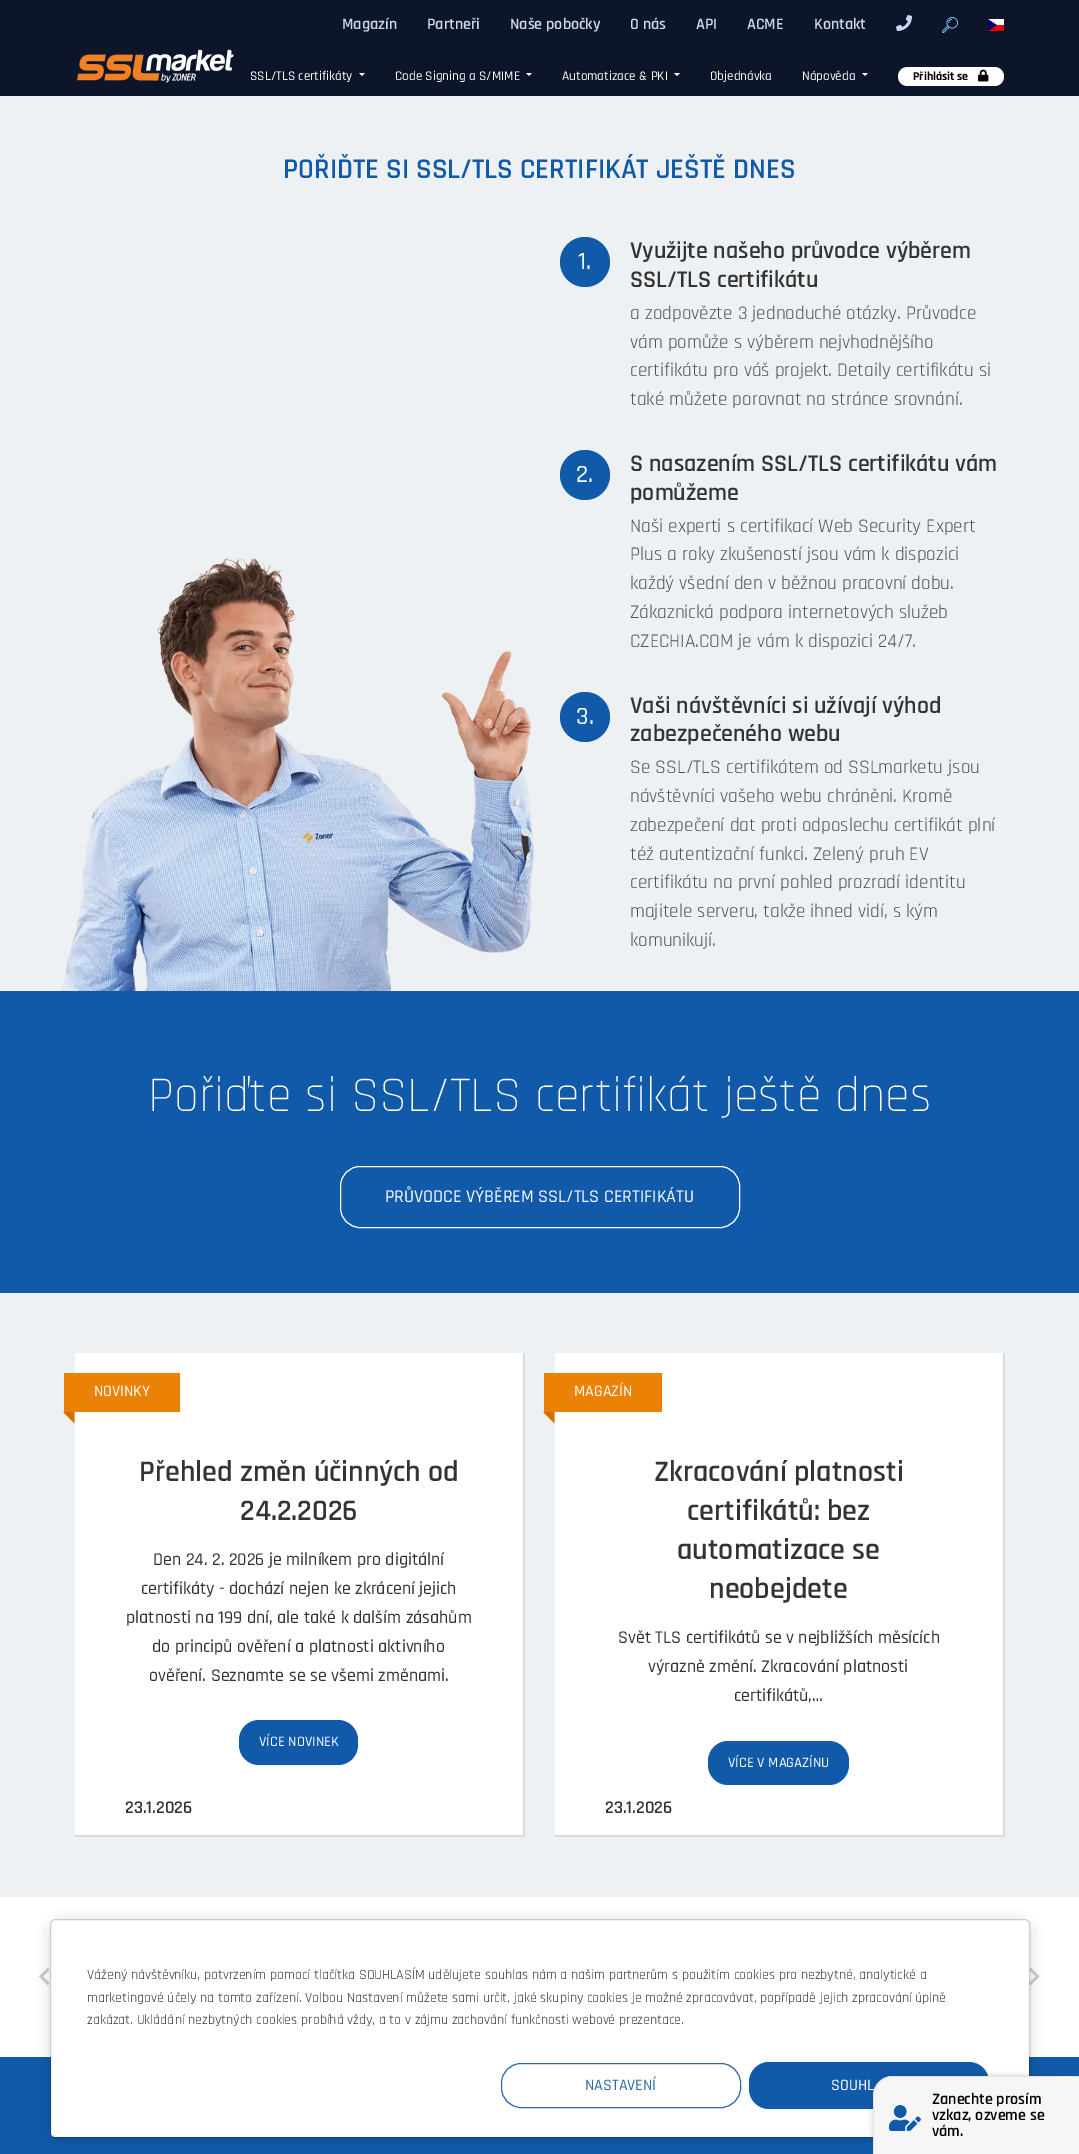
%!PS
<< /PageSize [1079 2154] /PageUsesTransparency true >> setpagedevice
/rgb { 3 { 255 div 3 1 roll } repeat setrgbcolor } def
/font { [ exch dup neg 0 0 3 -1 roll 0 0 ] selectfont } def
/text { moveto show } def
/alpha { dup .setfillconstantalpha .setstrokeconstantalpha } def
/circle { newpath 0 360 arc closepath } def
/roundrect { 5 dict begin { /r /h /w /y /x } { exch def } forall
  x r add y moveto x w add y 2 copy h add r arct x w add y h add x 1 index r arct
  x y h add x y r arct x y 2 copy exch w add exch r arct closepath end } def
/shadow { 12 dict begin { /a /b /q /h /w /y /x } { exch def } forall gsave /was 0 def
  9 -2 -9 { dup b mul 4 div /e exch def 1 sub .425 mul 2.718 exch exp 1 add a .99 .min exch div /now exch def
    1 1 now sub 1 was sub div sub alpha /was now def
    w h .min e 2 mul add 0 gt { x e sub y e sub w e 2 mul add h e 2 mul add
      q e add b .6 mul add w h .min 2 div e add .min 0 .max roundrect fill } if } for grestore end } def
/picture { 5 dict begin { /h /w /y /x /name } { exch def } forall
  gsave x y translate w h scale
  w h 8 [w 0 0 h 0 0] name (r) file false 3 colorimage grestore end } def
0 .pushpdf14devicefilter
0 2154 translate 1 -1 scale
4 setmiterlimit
255 255 255 rgb
0 0 1079 2154 rectfill
13 21 42 rgb
0 0 1079 96 rectfill
(img_01.rgb) 896 15 16 16 picture
(img_02.rgb) 942 17 16 16 picture
(img_03.rgb) 988 19 16 12 picture
(img_04.rgb) 77 49 157 34 picture
255 255 255 rgb
359 73 moveto 6 0 rlineto -3 3 rlineto closepath fill
526 73 moveto 6 0 rlineto -3 3 rlineto closepath fill
674 73 moveto 6 0 rlineto -3 3 rlineto closepath fill
862 73 moveto 6 0 rlineto -3 3 rlineto closepath fill
898 67 106 19 9.5 roundrect fill
(img_05.rgb) 978 69 11 13 picture
237 241 244 rgb
0 96 1079 895 rectfill
(img_06.rgb) 60 556 474 435 picture
17 89 169 rgb
585 262 25 circle fill
585 475 25 circle fill
585 717 25 circle fill
0 991 1079 302 rectfill
255 255 255 rgb
340.5 1166.5 399 61 19.5 roundrect stroke
237 241 244 rgb
0 1293 1079 604 rectfill
255 255 255 rgb
75 1353 448 482 rectfill
217 220 223 rgb
523 1353 2 484 rectfill
75 1835 450 2 rectfill
235 130 5 rgb
64 1373 116 39 rectfill
212 110 0 rgb
74.5 1423.5 moveto -11.5 -11.5 rlineto 11.5 0 rlineto closepath fill
17 89 169 rgb
239 1720 119 45 20 roundrect fill
255 255 255 rgb
555 1353 448 482 rectfill
217 220 223 rgb
1003 1353 2 484 rectfill
555 1835 450 2 rectfill
235 130 5 rgb
544 1373 118 39 rectfill
212 110 0 rgb
554.5 1423.5 moveto -11.5 -11.5 rlineto 11.5 0 rlineto closepath fill
17 89 169 rgb
708 1741 141 44 20 roundrect fill
(img_07.rgb) 39 1968 11 17 picture
(img_08.rgb) 1029 1968 11 17 picture
0 2057 1079 97 rectfill
gsave
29 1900 moveto 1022 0 rlineto 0 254 rlineto -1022 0 rlineto closepath 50 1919 moveto 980 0 rlineto 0 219 rlineto -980 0 rlineto closepath eoclip newpath
0 0 0 rgb
60 1931 960 199 0 10 0.5 shadow
grestore
255 255 255 rgb
51 1920 978 217 4 roundrect fill
0.2 alpha
0 0 0 rgb
50.5 1919.5 979 218 4.5 roundrect stroke
1 alpha
47 105 171 rgb
501.5 2063.5 239 44 19.5 roundrect stroke
17 89 169 rgb
749 2062 240 47 20 roundrect fill
50 50 50 rgb
872 2075 206 78 20 2.5 0.17 shadow
/Rajdhani-SemiBold 16 font
202 217 243 rgb
(Magazín) 342 29 text
(Partneři) 427 29 text
(Naše pobočky) 510 29 text
(O nás) 630 29 text
(API) 696 29 text
(ACME) 747 29 text
(Kontakt) 814 29 text
/Rajdhani-Medium 13.25 font
255 255 255 rgb
(SSL/TLS certifikáty) 250 80 text
(Code Signing a S/MIME) 395 80 text
(Automatizace & PKI) 562 80 text
(Objednávka) 710 80 text
(Nápověda) 802 80 text
/Rajdhani-Bold 12 font
0 0 0 rgb
(Přihlásit se) 913 80 text
/Rajdhani-SemiBold 28.75 font
17 89 169 rgb
(POŘIĎTE SI SSL/TLS CERTIFIKÁT JEŠTĚ DNES) 283 178 text
/Rajdhani-Medium 25 font
255 255 255 rgb
(1.) 578 269 text
/Rajdhani-SemiBold 24 font
51 51 51 rgb
(Využijte našeho průvodce výběrem) 630 258 text
(SSL/TLS certifikátu) 630 287 text
/Rajdhani-Regular 19.25 font
80 80 80 rgb
(a zodpovězte 3 jednoduché otázky. Průvodce) 630 319 text
(vám pomůže s výběrem nejvhodnějšího) 630 348 text
(certifikátu pro váš projekt. Detaily certifikátu si) 630 376 text
(také můžete porovnat na stránce srovnání.) 630 405 text
/Rajdhani-Medium 25 font
255 255 255 rgb
(2.) 576 482 text
/Rajdhani-SemiBold 24 font
51 51 51 rgb
(S nasazením SSL/TLS certifikátu vám) 630 471 text
(pomůžeme) 630 500 text
/Rajdhani-Regular 19.25 font
80 80 80 rgb
(Naši experti s certifikací Web Security Expert) 630 532 text
(Plus a roky zkušeností jsou vám k dispozici) 630 560 text
(každý všední den v běžnou pracovní dobu.) 630 589 text
(Zákaznická podpora internetových služeb) 630 618 text
(CZECHIA.COM je vám k dispozici 24/7.) 630 647 text
/Rajdhani-Medium 25 font
255 255 255 rgb
(3.) 576 724 text
/Rajdhani-SemiBold 24 font
51 51 51 rgb
(Vaši návštěvníci si užívají výhod) 630 713 text
(zabezpečeného webu) 630 741 text
/Rajdhani-Regular 19.25 font
80 80 80 rgb
(Se SSL/TLS certifikátem od SSLmarketu jsou) 630 773 text
(návštěvníci vašeho webu chráněni. Kromě) 630 802 text
(zabezpečení dat proti odposlechu certifikát plní) 630 831 text
(též autentizační funkci. Zelený pruh EV) 630 860 text
(certifikátu na první pohled prozradí identitu) 630 888 text
(majitele serveru, takže ihned vidí, s kým) 630 917 text
(komunikují.) 630 946 text
/Rajdhani-Light 50 font
255 255 255 rgb
(Pořiďte si SSL/TLS certifikát ještě dnes) 148 1111 text
/Rajdhani-Medium 18 font
(PRŮVODCE VÝBĚREM SSL/TLS CERTIFIKÁTU) 385 1202 text
/Rajdhani-Medium 16 font
(NOVINKY) 94 1396 text
/Rajdhani-SemiBold 30 font
51 51 51 rgb
(Přehled změn účinných od) 139 1481 text
(24.2.2026) 240 1520 text
/Rajdhani-Medium 18 font
(Den 24. 2. 2026 je milníkem pro digitální) 153 1565 text
(certifikáty - dochází nejen ke zkrácení jejich) 141 1594 text
(platnosti na 199 dní, ale také k dalším zásahům) 126 1623 text
(do principů ověření a platnosti aktivního) 152 1652 text
(ověření. Seznamte se se všemi změnami.) 149 1681 text
/Rajdhani-SemiBold 18 font
(23.1.2026) 125 1813 text
/Rajdhani-Medium 14.5 font
255 255 255 rgb
(VÍCE NOVINEK) 259 1746 text
/Rajdhani-Medium 16 font
(MAGAZÍN) 574 1396 text
/Rajdhani-SemiBold 30 font
51 51 51 rgb
(Zkracování platnosti) 654 1481 text
(certifikátů: bez) 687 1520 text
(automatizace se) 677 1559 text
(neobejdete) 709 1598 text
/Rajdhani-Medium 18 font
(Svět TLS certifikátů se v nejbližších měsících) 618 1643 text
(výrazně změní. Zkracování platnosti) 648 1672 text
(certifikátů,…) 734 1701 text
/Rajdhani-SemiBold 18 font
(23.1.2026) 605 1813 text
/Rajdhani-Medium 14.5 font
255 255 255 rgb
(VÍCE V MAGAZÍNU) 728 1767 text
/Rajdhani-Regular 14 font
51 51 51 rgb
(Vážený návštěvníku, potvrzením pomocí tlačítka SOUHLASÍM udělujete souhlas nám a našim partnerům s použitím cookies pro nezbytné, analytické a) 87 1979 text
(marketingové účely na tomto zařízení. Volbou Nastavení můžete sami určit, jaké skupiny cookies je možné zpracovávat, popřípadě jejich zpracování úplně) 87 2002 text
(zakázat. Ukládání nezbytných cookies probíhá vždy, a to v zájmu zachování funkčnosti webové prezentace.) 87 2024 text
/Rajdhani-Medium 16 font
47 105 171 rgb
(NASTAVENÍ) 585 2090 text
255 255 255 rgb
(SOUHL) 831 2090 text
246 246 246 rgb
893 2076 moveto 186 0 rlineto 0 78 rlineto -206 0 rlineto 0 -58 rlineto 0 -11 9 -20 20 -20 rcurveto closepath fill
227 227 227 rgb
893 2076 moveto 186 0 rlineto 0 78 rlineto -206 0 rlineto 0 -58 rlineto 0 -11 9 -20 20 -20 rcurveto closepath 893 2077 moveto 186 0 rlineto 0 77 rlineto -205 0 rlineto 0 -58 rlineto 0 -10 9 -19 19 -19 rcurveto closepath eofill
(img_09.rgb) 889 2105 32 26 picture
/Rajdhani-SemiBold 16 font
0 0 0 rgb
(Zanechte prosím) 932 2104 text
(vzkaz, ozveme se) 932 2120 text
(vám.) 932 2136 text
.poppdf14devicefilter showpage
